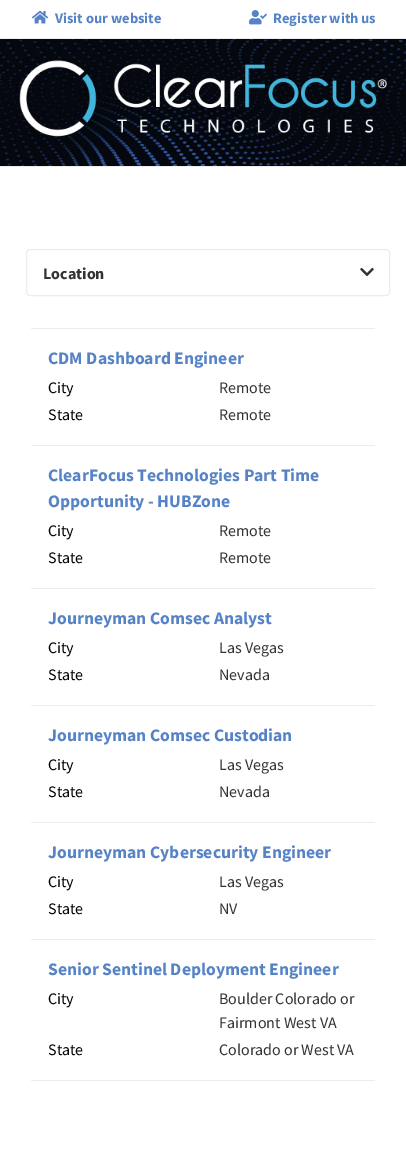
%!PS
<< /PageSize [406 1158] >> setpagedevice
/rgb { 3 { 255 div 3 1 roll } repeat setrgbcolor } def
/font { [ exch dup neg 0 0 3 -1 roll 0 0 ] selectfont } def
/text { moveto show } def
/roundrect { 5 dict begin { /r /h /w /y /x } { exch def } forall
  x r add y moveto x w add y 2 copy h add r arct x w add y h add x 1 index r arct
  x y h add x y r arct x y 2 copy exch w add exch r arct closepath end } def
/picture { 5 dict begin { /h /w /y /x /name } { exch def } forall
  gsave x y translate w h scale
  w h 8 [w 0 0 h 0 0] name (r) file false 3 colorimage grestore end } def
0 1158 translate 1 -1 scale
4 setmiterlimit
255 255 255 rgb
0 0 406 1158 rectfill
237 237 237 rgb
0 38 406 1 rectfill
(img_01.rgb) 32 10 16 14 picture
(img_02.rgb) 249 10 18 15 picture
(img_03.rgb) 0 39 406 127 picture
(img_04.rgb) 19 60 368 77 picture
0 166 406 1 rectfill
26.5 249.5 363 46 3.5 roundrect stroke
(img_05.rgb) 360 267 14 10 picture
31 328 344 1 rectfill
31 445 344 1 rectfill
31 588 344 1 rectfill
31 705 344 1 rectfill
31 822 344 1 rectfill
31 939 344 1 rectfill
31 1080 344 1 rectfill
/SourceSansPro-Bold 14.5 font
86 130 198 rgb
(Visit our website) 55 23 text
(Register with us) 273 23 text
/SourceSansPro-Bold 16 font
51 51 51 rgb
(Location) 43 279 text
/SourceSansPro-Bold 17.6 font
86 130 198 rgb
(CDM Dashboard Engineer) 48 364 text
/SourceSansPro-Regular 16 font
1 1 1 rgb
(City) 48 393 text
51 51 51 rgb
(Remote) 219 393 text
1 1 1 rgb
(State) 48 420 text
51 51 51 rgb
(Remote) 219 420 text
/SourceSansPro-Bold 17.6 font
86 130 198 rgb
(ClearFocus Technologies Part Time) 48 481 text
(Opportunity - HUBZone) 48 507 text
/SourceSansPro-Regular 16 font
1 1 1 rgb
(City) 48 536 text
51 51 51 rgb
(Remote) 219 536 text
1 1 1 rgb
(State) 48 563 text
51 51 51 rgb
(Remote) 219 563 text
/SourceSansPro-Bold 17.6 font
86 130 198 rgb
(Journeyman Comsec Analyst) 48 624 text
/SourceSansPro-Regular 16 font
1 1 1 rgb
(City) 48 653 text
51 51 51 rgb
(Las Vegas) 219 653 text
1 1 1 rgb
(State) 48 680 text
51 51 51 rgb
(Nevada) 219 680 text
/SourceSansPro-Bold 17.6 font
86 130 198 rgb
(Journeyman Comsec Custodian) 48 741 text
/SourceSansPro-Regular 16 font
1 1 1 rgb
(City) 48 770 text
51 51 51 rgb
(Las Vegas) 219 770 text
1 1 1 rgb
(State) 48 797 text
51 51 51 rgb
(Nevada) 219 797 text
/SourceSansPro-Bold 17.6 font
86 130 198 rgb
(Journeyman Cybersecurity Engineer) 48 858 text
/SourceSansPro-Regular 16 font
1 1 1 rgb
(City) 48 887 text
51 51 51 rgb
(Las Vegas) 219 887 text
1 1 1 rgb
(State) 48 914 text
51 51 51 rgb
(NV) 219 914 text
/SourceSansPro-Bold 17.6 font
86 130 198 rgb
(Senior Sentinel Deployment Engineer) 48 975 text
/SourceSansPro-Regular 16 font
1 1 1 rgb
(City) 48 1004 text
51 51 51 rgb
(Boulder Colorado or) 219 1004 text
(Fairmont West VA) 219 1028 text
1 1 1 rgb
(State) 48 1055 text
51 51 51 rgb
(Colorado or West VA) 219 1055 text
showpage
